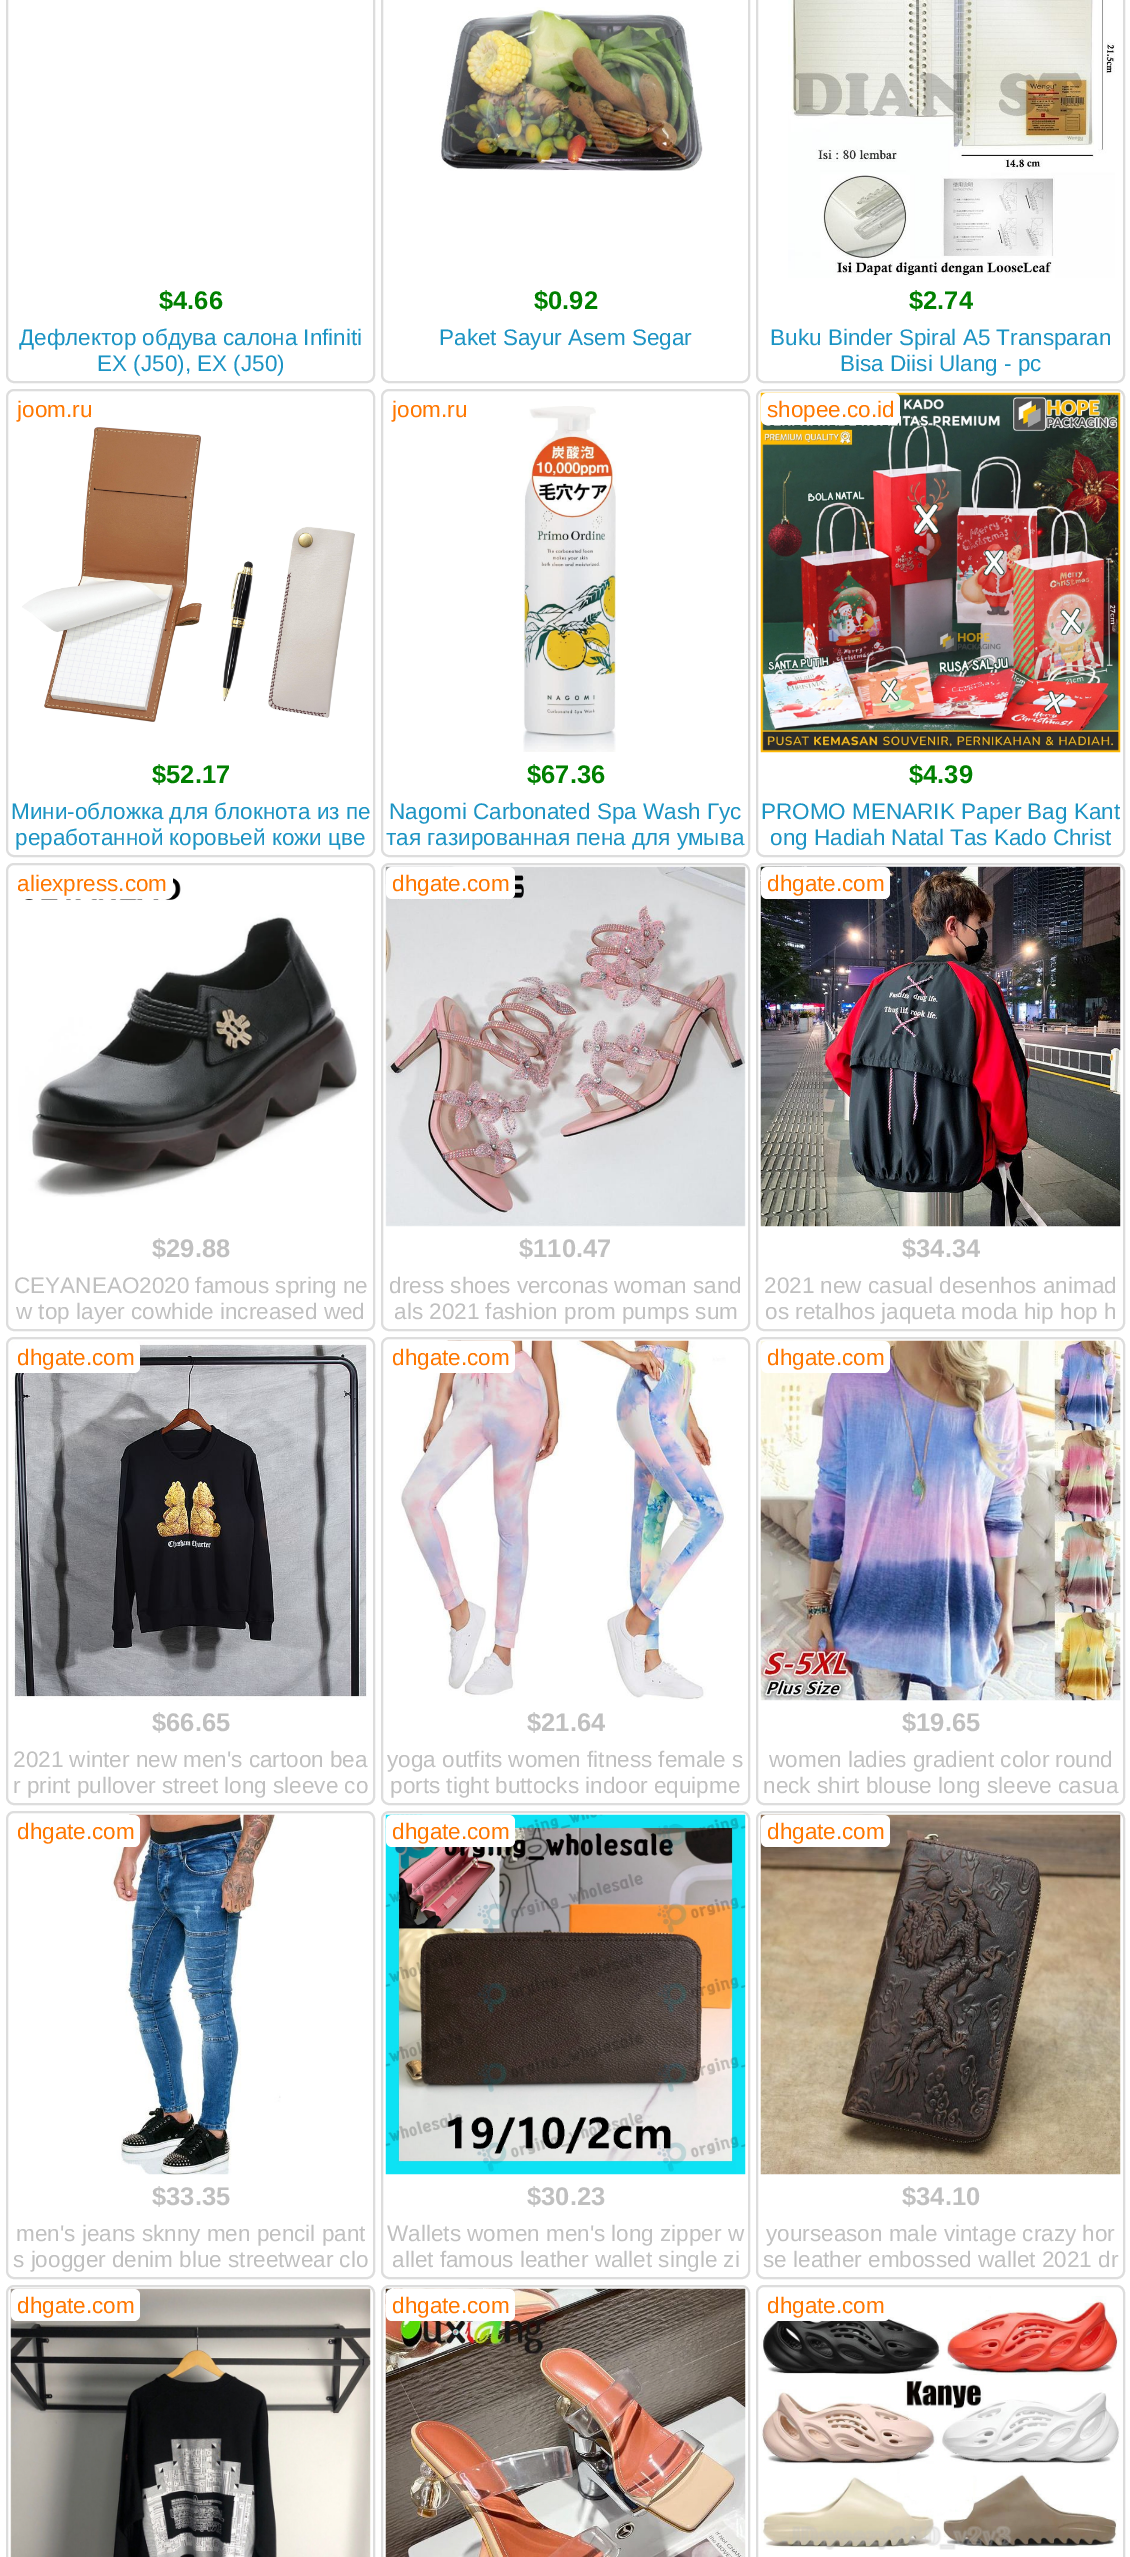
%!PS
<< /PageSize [1130 2557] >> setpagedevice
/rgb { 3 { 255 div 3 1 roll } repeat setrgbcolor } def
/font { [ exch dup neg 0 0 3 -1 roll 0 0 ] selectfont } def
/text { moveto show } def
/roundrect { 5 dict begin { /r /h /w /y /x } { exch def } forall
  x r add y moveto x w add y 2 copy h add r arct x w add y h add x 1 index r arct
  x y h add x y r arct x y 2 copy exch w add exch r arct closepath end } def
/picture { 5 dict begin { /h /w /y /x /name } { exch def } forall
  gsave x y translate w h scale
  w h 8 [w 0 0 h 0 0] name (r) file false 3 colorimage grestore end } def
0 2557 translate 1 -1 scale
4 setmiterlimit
255 255 255 rgb
0 0 1130 2557 rectfill
221 221 221 rgb
2 setlinewidth
7 -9 367 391 7 roundrect stroke
382 -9 367 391 7 roundrect stroke
(img_01.rgb) 439 7 264 164 picture
757 -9 367 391 7 roundrect stroke
(img_02.rgb) 788 0 327 278 picture
7 390 367 466 7 roundrect stroke
(img_03.rgb) 22 427 333 295 picture
382 390 367 466 7 roundrect stroke
(img_04.rgb) 523 406 94 346 picture
757 390 367 466 7 roundrect stroke
(img_05.rgb) 760 392 361 361 picture
255 255 255 rgb
761 393 139 32 6 roundrect fill
221 221 221 rgb
7 864 367 466 7 roundrect stroke
(img_06.rgb) 18 877 339 320 picture
255 255 255 rgb
11 867 162 32 6 roundrect fill
221 221 221 rgb
382 864 367 466 7 roundrect stroke
(img_07.rgb) 385 866 361 361 picture
255 255 255 rgb
386 867 129 32 6 roundrect fill
221 221 221 rgb
757 864 367 466 7 roundrect stroke
(img_08.rgb) 760 866 361 361 picture
255 255 255 rgb
761 867 129 32 6 roundrect fill
221 221 221 rgb
7 1338 367 466 7 roundrect stroke
(img_09.rgb) 11 1341 356 359 picture
255 255 255 rgb
11 1341 129 32 6 roundrect fill
221 221 221 rgb
382 1338 367 466 7 roundrect stroke
(img_10.rgb) 400 1340 326 360 picture
255 255 255 rgb
386 1341 129 32 6 roundrect fill
221 221 221 rgb
757 1338 367 466 7 roundrect stroke
(img_11.rgb) 760 1340 361 361 picture
255 255 255 rgb
761 1341 129 32 6 roundrect fill
221 221 221 rgb
7 1812 367 466 7 roundrect stroke
(img_12.rgb) 110 1814 171 361 picture
255 255 255 rgb
11 1815 129 32 6 roundrect fill
221 221 221 rgb
382 1812 367 466 7 roundrect stroke
(img_13.rgb) 385 1814 361 361 picture
255 255 255 rgb
386 1815 129 32 6 roundrect fill
221 221 221 rgb
757 1812 367 466 7 roundrect stroke
(img_14.rgb) 760 1814 361 361 picture
255 255 255 rgb
761 1815 129 32 6 roundrect fill
221 221 221 rgb
7 2286 367 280 7 roundrect stroke
(img_15.rgb) 10 2288 361 269 picture
255 255 255 rgb
11 2289 129 32 6 roundrect fill
221 221 221 rgb
382 2286 367 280 7 roundrect stroke
(img_16.rgb) 385 2288 361 269 picture
255 255 255 rgb
386 2289 129 32 6 roundrect fill
221 221 221 rgb
757 2286 367 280 7 roundrect stroke
(img_17.rgb) 761 2296 359 254 picture
255 255 255 rgb
761 2289 129 32 6 roundrect fill
/LiberationSans-Bold 25.5 font
0 128 0 rgb
($4.66) 159 309 text
/LiberationSans-Regular 22.5 font
28 148 196 rgb
(Дефлектор обдува салона Infiniti) 19 345 text
(EX \(J50\), EX \(J50\)) 97 371 text
/LiberationSans-Bold 25.5 font
0 128 0 rgb
($0.92) 534 309 text
/LiberationSans-Regular 22.5 font
28 148 196 rgb
(Paket Sayur Asem Segar) 439 345 text
/LiberationSans-Bold 25.5 font
0 128 0 rgb
($2.74) 909 309 text
/LiberationSans-Regular 22.5 font
28 148 196 rgb
(Buku Binder Spiral A5 Transparan) 770 345 text
(Bisa Diisi Ulang - pc) 840 371 text
255 119 0 rgb
(joom.ru) 17 417 text
/LiberationSans-Bold 25.5 font
0 128 0 rgb
($52.17) 152 783 text
/LiberationSans-Regular 22.5 font
28 148 196 rgb
(Мини-обложка для блокнота из пе) 11 819 text
(реработанной коровьей кожи цве) 15 845 text
255 119 0 rgb
(joom.ru) 392 417 text
/LiberationSans-Bold 25.5 font
0 128 0 rgb
($67.36) 527 783 text
/LiberationSans-Regular 22.5 font
28 148 196 rgb
(Nagomi Carbonated Spa Wash Гус) 389 819 text
(тая газированная пена для умыва) 386 845 text
255 119 0 rgb
(shopee.co.id) 767 417 text
/LiberationSans-Bold 25.5 font
0 128 0 rgb
($4.39) 909 783 text
/LiberationSans-Regular 22.5 font
28 148 196 rgb
(PROMO MENARIK Paper Bag Kant) 761 819 text
(ong Hadiah Natal Tas Kado Christ) 770 845 text
255 119 0 rgb
(aliexpress.com) 17 891 text
/LiberationSans-Bold 25.5 font
192 192 192 rgb
($29.88) 152 1257 text
/LiberationSans-Regular 22.5 font
(CEYANEAO2020 famous spring ne) 14 1293 text
(w top layer cowhide increased wed) 16 1319 text
255 119 0 rgb
(dhgate.com) 392 891 text
/LiberationSans-Bold 25.5 font
192 192 192 rgb
($110.47) 519 1257 text
/LiberationSans-Regular 22.5 font
(dress shoes verconas woman sand) 389 1293 text
(als 2021 fashion prom pumps sum) 394 1319 text
255 119 0 rgb
(dhgate.com) 767 891 text
/LiberationSans-Bold 25.5 font
192 192 192 rgb
($34.34) 902 1257 text
/LiberationSans-Regular 22.5 font
(2021 new casual desenhos animad) 764 1293 text
(os retalhos jaqueta moda hip hop h) 765 1319 text
255 119 0 rgb
(dhgate.com) 17 1365 text
/LiberationSans-Bold 25.5 font
192 192 192 rgb
($66.65) 152 1731 text
/LiberationSans-Regular 22.5 font
(2021 winter new men's cartoon bea) 13 1767 text
(r print pullover street long sleeve co) 13 1793 text
255 119 0 rgb
(dhgate.com) 392 1365 text
/LiberationSans-Bold 25.5 font
192 192 192 rgb
($21.64) 527 1731 text
/LiberationSans-Regular 22.5 font
(yoga outfits women fitness female s) 387 1767 text
(ports tight buttocks indoor equipme) 390 1793 text
255 119 0 rgb
(dhgate.com) 767 1365 text
/LiberationSans-Bold 25.5 font
192 192 192 rgb
($19.65) 902 1731 text
/LiberationSans-Regular 22.5 font
(women ladies gradient color round) 769 1767 text
(neck shirt blouse long sleeve casua) 763 1793 text
255 119 0 rgb
(dhgate.com) 17 1839 text
/LiberationSans-Bold 25.5 font
192 192 192 rgb
($33.35) 152 2205 text
/LiberationSans-Regular 22.5 font
(men's jeans sknny men pencil pant) 16 2241 text
(s joogger denim blue streetwear clo) 13 2267 text
255 119 0 rgb
(dhgate.com) 392 1839 text
/LiberationSans-Bold 25.5 font
192 192 192 rgb
($30.23) 527 2205 text
/LiberationSans-Regular 22.5 font
(Wallets women men's long zipper w) 387 2241 text
(allet famous leather wallet single zi) 392 2267 text
255 119 0 rgb
(dhgate.com) 767 1839 text
/LiberationSans-Bold 25.5 font
192 192 192 rgb
($34.10) 902 2205 text
/LiberationSans-Regular 22.5 font
(yourseason male vintage crazy hor) 766 2241 text
(se leather embossed wallet 2021 dr) 763 2267 text
255 119 0 rgb
(dhgate.com) 17 2313 text
(dhgate.com) 392 2313 text
(dhgate.com) 767 2313 text
showpage
